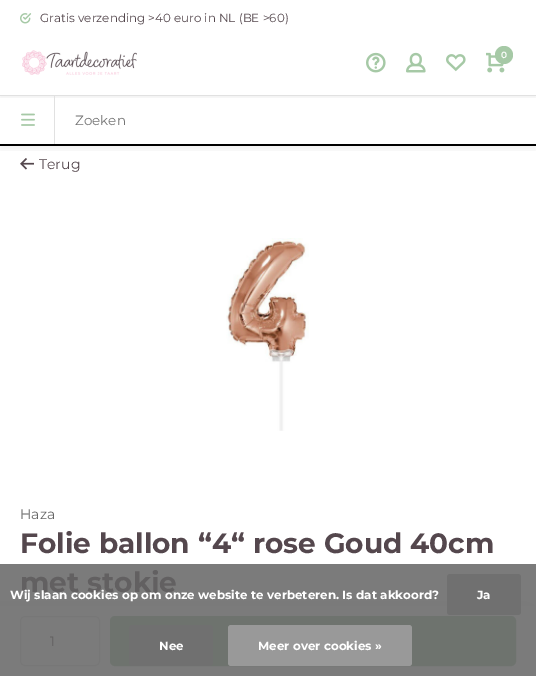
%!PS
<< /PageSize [536 676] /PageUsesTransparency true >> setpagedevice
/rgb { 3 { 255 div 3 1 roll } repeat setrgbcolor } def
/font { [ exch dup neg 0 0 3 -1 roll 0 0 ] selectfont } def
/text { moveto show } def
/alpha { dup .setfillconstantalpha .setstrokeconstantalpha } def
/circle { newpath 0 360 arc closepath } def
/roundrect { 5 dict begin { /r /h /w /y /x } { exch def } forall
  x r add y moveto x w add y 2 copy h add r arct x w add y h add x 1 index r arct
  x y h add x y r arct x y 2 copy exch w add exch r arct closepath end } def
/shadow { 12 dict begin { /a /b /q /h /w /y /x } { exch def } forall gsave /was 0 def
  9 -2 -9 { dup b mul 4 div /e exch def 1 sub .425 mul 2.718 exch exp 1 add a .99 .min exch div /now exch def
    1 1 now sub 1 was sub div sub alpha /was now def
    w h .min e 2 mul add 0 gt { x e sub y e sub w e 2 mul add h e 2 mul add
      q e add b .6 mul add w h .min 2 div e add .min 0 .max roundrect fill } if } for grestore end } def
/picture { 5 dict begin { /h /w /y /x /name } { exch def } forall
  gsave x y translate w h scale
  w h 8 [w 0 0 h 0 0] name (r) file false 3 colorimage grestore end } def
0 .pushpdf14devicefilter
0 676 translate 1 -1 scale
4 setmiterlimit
255 255 255 rgb
0 0 536 676 rectfill
123 123 123 rgb
0 564 536 42 rectfill
(img_01.rgb) 20 13 12 11 picture
(img_08.rgb) 20 158 14 12 picture
gsave
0 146 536 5 rectclip
0 0 0 rgb
0 40 536 110 0 5 0.05 shadow
grestore
gsave
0 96 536 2 rectclip
0 0 0 rgb
0 38 536 60 0 2 0.05 shadow
grestore
(img_02.rgb) 22 50 115 25 picture
(img_03.rgb) 366 52 20 21 picture
(img_04.rgb) 406 52 20 21 picture
(img_05.rgb) 446 54 20 18 picture
(img_06.rgb) 486 52 19 21 picture
166 201 166 rgb
504 55 9 circle fill
225 225 225 rgb
0 95 536 1 rectfill
(img_07.rgb) 21 113 14 13 picture
54 96 1 48 rectfill
0 0 0 rgb
0 144 536 2 rectfill
(img_09.rgb) 226 238 83 193 picture
85 85 85 rgb
-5 612 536 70 0 15 0.15 shadow
123 123 123 rgb
0 606 536 70 rectfill
119 119 119 rgb
20.5 616.5 79 49 4.5 roundrect stroke
110 115 110 rgb
111 617 404 48 4 roundrect gsave fill grestore
2 setlinewidth
stroke
112 112 112 rgb
447 574 74 41 3 roundrect fill
129 625 84 41 3 roundrect fill
153 153 153 rgb
228 625 184 41 3 roundrect fill
/Montserrat-Regular 11.9 font
84 71 77 rgb
(Gratis verzending >40 euro in NL \(BE >60\)) 40 22 text
/Montserrat-SemiBold 9 font
255 255 255 rgb
(0) 501 58 text
/Montserrat-Regular 13.5 font
117 117 117 rgb
(Zoeken) 75 125 text
/Montserrat-Regular 14 font
84 71 77 rgb
(Terug) 39 169 text
102 102 102 rgb
(Haza) 20 519 text
/Montserrat-Bold 28 font
84 71 77 rgb
(Folie ballon “4“ rose Goud 40cm) 20 553 text
98 96 97 rgb
(met stokje) 20 592 text
/Montserrat-Regular 13.5 font
(1) 50 646 text
/Montserrat-Bold 11.9 font
255 255 255 rgb
(Wij slaan cookies op om onze website te verbeteren. Is dat akkoord?) 10 599 text
(Ja) 477 599 text
(Nee) 159 650 text
(Meer over cookies ») 258 650 text
.poppdf14devicefilter showpage
